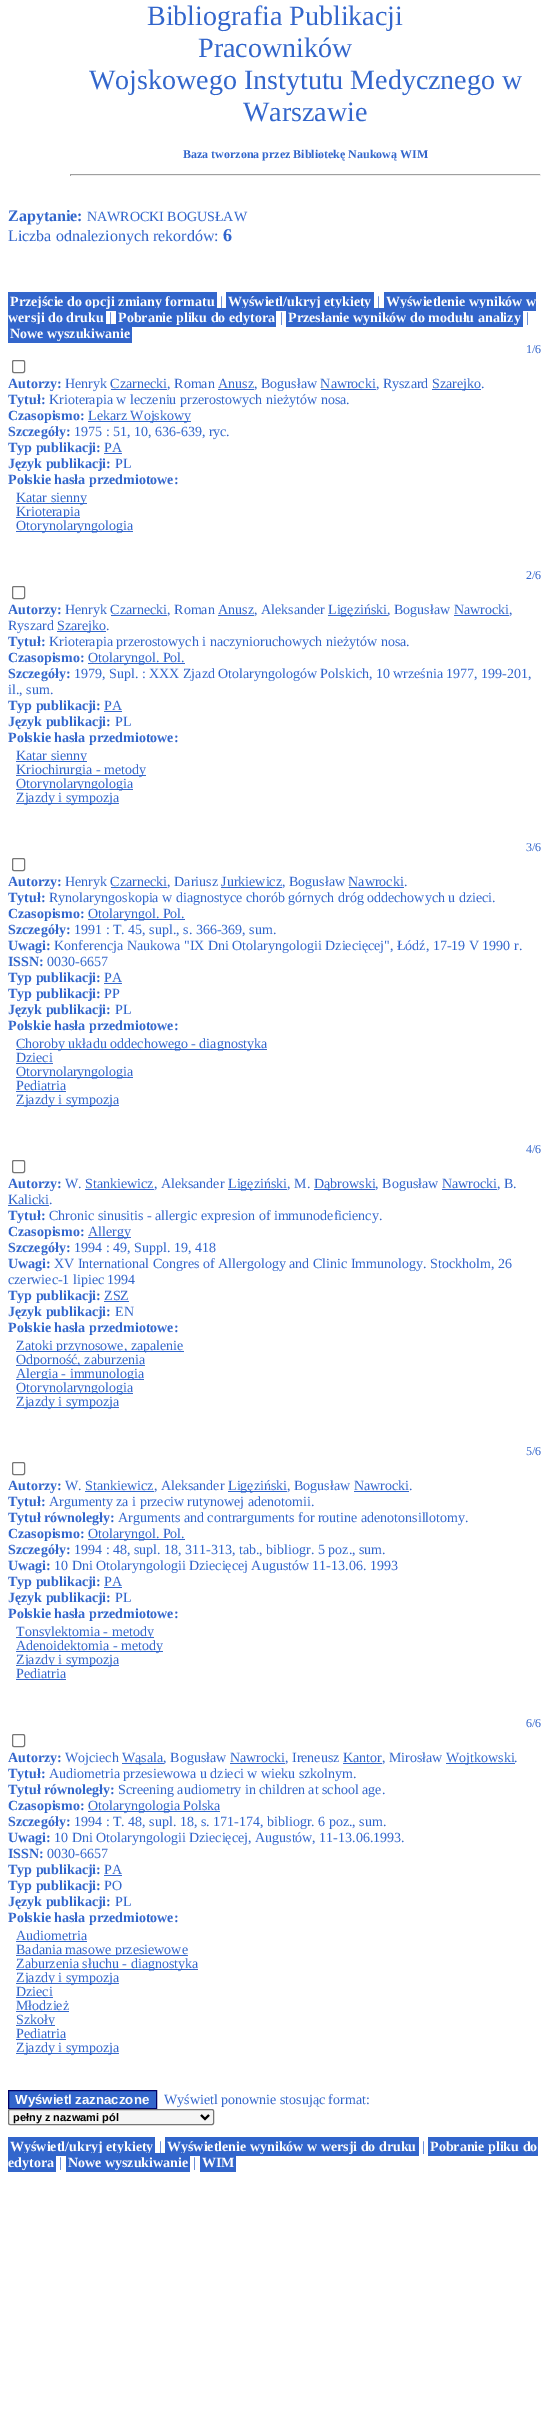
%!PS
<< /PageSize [549 2420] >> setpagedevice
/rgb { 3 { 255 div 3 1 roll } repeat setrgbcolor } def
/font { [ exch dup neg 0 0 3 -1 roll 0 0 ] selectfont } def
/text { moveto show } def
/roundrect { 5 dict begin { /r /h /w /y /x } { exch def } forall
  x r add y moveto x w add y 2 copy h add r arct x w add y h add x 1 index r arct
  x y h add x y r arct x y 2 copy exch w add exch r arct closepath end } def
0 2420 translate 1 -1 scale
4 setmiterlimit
255 255 255 rgb
0 0 549 2420 rectfill
159 159 159 rgb
70 174 471 1 rectfill
238 238 238 rgb
540 174 1 2 rectfill
70 175 471 1 rectfill
159 159 159 rgb
70 174 1 2 rectfill
51 102 204 rgb
8 292 209 19 rectfill
226 292 148 19 rectfill
384 292 152 19 rectfill
118 118 118 rgb
12.5 360.5 12 12 1.5 roundrect stroke
51 102 204 rgb
111 389 56 1 rectfill
218 389 36 1 rectfill
321 389 55 1 rectfill
432 389 49 1 rectfill
88 421 103 1 rectfill
104 453 18 1 rectfill
16 503 71 1 rectfill
16 517 64 1 rectfill
16 531 117 1 rectfill
118 118 118 rgb
12.5 586.5 12 12 1.5 roundrect stroke
51 102 204 rgb
111 615 56 1 rectfill
218 615 36 1 rectfill
328 615 60 1 rectfill
454 615 55 1 rectfill
57 631 49 1 rectfill
88 663 97 1 rectfill
104 711 18 1 rectfill
16 761 71 1 rectfill
16 775 130 1 rectfill
16 789 117 1 rectfill
16 803 103 1 rectfill
118 118 118 rgb
12.5 858.5 12 12 1.5 roundrect stroke
51 102 204 rgb
111 887 56 1 rectfill
221 887 61 1 rectfill
349 887 55 1 rectfill
88 919 97 1 rectfill
104 983 18 1 rectfill
16 1049 251 1 rectfill
16 1063 37 1 rectfill
16 1077 117 1 rectfill
16 1091 50 1 rectfill
16 1105 103 1 rectfill
118 118 118 rgb
12.5 1160.5 12 12 1.5 roundrect stroke
51 102 204 rgb
85 1189 69 1 rectfill
228 1189 59 1 rectfill
314 1189 61 1 rectfill
442 1189 55 1 rectfill
8 1205 41 1 rectfill
88 1237 43 1 rectfill
104 1301 25 1 rectfill
16 1351 168 1 rectfill
16 1365 129 1 rectfill
16 1379 128 1 rectfill
16 1393 117 1 rectfill
16 1407 103 1 rectfill
118 118 118 rgb
12.5 1462.5 12 12 1.5 roundrect stroke
51 102 204 rgb
85 1491 69 1 rectfill
228 1491 59 1 rectfill
354 1491 55 1 rectfill
88 1539 97 1 rectfill
104 1587 18 1 rectfill
16 1637 138 1 rectfill
16 1651 147 1 rectfill
16 1665 103 1 rectfill
16 1679 50 1 rectfill
118 118 118 rgb
12.5 1734.5 12 12 1.5 roundrect stroke
51 102 204 rgb
122 1763 42 1 rectfill
230 1763 55 1 rectfill
343 1763 39 1 rectfill
446 1763 69 1 rectfill
88 1811 132 1 rectfill
104 1875 18 1 rectfill
16 1941 71 1 rectfill
16 1955 172 1 rectfill
16 1969 182 1 rectfill
16 1983 103 1 rectfill
16 1997 37 1 rectfill
16 2011 53 1 rectfill
16 2025 39 1 rectfill
16 2039 50 1 rectfill
16 2053 103 1 rectfill
8.5 2090.5 moveto 148 0 rlineto 0 18 rlineto -148 0 rlineto closepath gsave fill grestore
0 0 102 rgb
stroke
245 245 245 rgb
8.5 2109.5 205 15 1.5 roundrect gsave fill grestore
118 118 118 rgb
stroke
0 0 0 rgb
2 setlinewidth
201 2115 moveto 4 4 rlineto 4 -4 rlineto stroke
51 102 204 rgb
8 2137 147 19 rectfill
165 2137 254 19 rectfill
428 2137 110 19 rectfill
200 2156 36 16 rectfill
/LiberationSerif-Regular 28 font
(Bibliografia Publikacji) 147 25 text
(Pracowników) 198 57 text
(Wojskowego Instytutu Medycznego w) 89 89 text
(Warszawie) 243 121 text
/LiberationSerif-Bold 12 font
(Baza tworzona przez Bibliotekę Naukową WIM) 183 158 text
/LiberationSerif-Bold 16 font
(Zapytanie:) 8 221 text
/LiberationSerif-Regular 14 font
(NAWROCKI BOGUSŁAW) 87 221 text
/LiberationSerif-Regular 16 font
(Liczba odnalezionych rekordów:) 8 241 text
/LiberationSerif-Bold 18 font
(6) 223 241 text
/LiberationSerif-Bold 14 font
255 255 255 rgb
(Przejście do opcji zmiany formatu) 10 306 text
/LiberationSerif-Regular 14 font
51 102 204 rgb
(|) 220 306 text
/LiberationSerif-Bold 14 font
255 255 255 rgb
(Wyświetl/ukryj etykiety) 228 306 text
/LiberationSerif-Regular 14 font
51 102 204 rgb
(|) 377 306 text
/LiberationSerif-Bold 14 font
255 255 255 rgb
(Wyświetlenie wyników w) 386 306 text
51 102 204 rgb
8 308 98 16 rectfill
255 255 255 rgb
(wersji do druku) 8 322 text
/LiberationSerif-Regular 14 font
51 102 204 rgb
(|) 109 322 text
116 308 160 19 rectfill
/LiberationSerif-Bold 14 font
255 255 255 rgb
(Pobranie pliku do edytora) 118 322 text
/LiberationSerif-Regular 14 font
51 102 204 rgb
(|) 280 322 text
286 308 237 19 rectfill
/LiberationSerif-Bold 14 font
255 255 255 rgb
(Przesłanie wyników do modułu analizy) 288 322 text
/LiberationSerif-Regular 14 font
51 102 204 rgb
(|) 526 322 text
8 324 124 19 rectfill
/LiberationSerif-Bold 14 font
255 255 255 rgb
(Nowe wyszukiwanie) 10 338 text
/LiberationSerif-Regular 12 font
51 102 204 rgb
(1/6) 526 353 text
/LiberationSerif-Bold 14 font
(Autorzy:) 8 388 text
/LiberationSerif-Regular 14 font
(Henryk Czarnecki, Roman Anusz, Bogusław Nawrocki, Ryszard) 65 388 text
(Szarejko.) 432 388 text
/LiberationSerif-Bold 14 font
(Tytuł:) 8 404 text
/LiberationSerif-Regular 14 font
(Krioterapia w leczeniu przerostowych nieżytów nosa.) 49 404 text
/LiberationSerif-Bold 14 font
(Czasopismo:) 8 420 text
/LiberationSerif-Regular 14 font
(Lekarz Wojskowy) 88 420 text
/LiberationSerif-Bold 14 font
(Szczegóły:) 8 436 text
/LiberationSerif-Regular 14 font
(1975 : 51, 10, 636-639, ryc.) 74 436 text
/LiberationSerif-Bold 14 font
(Typ publikacji:) 8 452 text
/LiberationSerif-Regular 14 font
(PA) 104 452 text
/LiberationSerif-Bold 14 font
(Język publikacji:) 8 468 text
/LiberationSerif-Regular 14 font
(PL) 115 468 text
/LiberationSerif-Bold 14 font
(Polskie hasła przedmiotowe:) 8 484 text
/LiberationSerif-Regular 14 font
(Katar sienny) 16 502 text
(Krioterapia) 16 516 text
(Otorynolaryngologia) 16 530 text
255 255 255 rgb
62 518 4 1 rectfill
/LiberationSerif-Regular 12 font
51 102 204 rgb
(2/6) 526 579 text
/LiberationSerif-Bold 14 font
(Autorzy:) 8 614 text
/LiberationSerif-Regular 14 font
(Henryk Czarnecki, Roman Anusz, Aleksander) 65 614 text
(Ligęziński, Bogusław Nawrocki,) 328 614 text
(Ryszard) 8 630 text
(Szarejko.) 57 630 text
/LiberationSerif-Bold 14 font
(Tytuł:) 8 646 text
/LiberationSerif-Regular 14 font
(Krioterapia przerostowych i naczynioruchowych nieżytów nosa.) 49 646 text
/LiberationSerif-Bold 14 font
(Czasopismo:) 8 662 text
/LiberationSerif-Regular 14 font
(Otolaryngol. Pol.) 88 662 text
/LiberationSerif-Bold 14 font
(Szczegóły:) 8 678 text
/LiberationSerif-Regular 14 font
(1979, Supl. : XXX Zjazd Otolaryngologów Polskich, 10 września 1977, 199-201,) 74 678 text
(il., sum.) 8 694 text
/LiberationSerif-Bold 14 font
(Typ publikacji:) 8 710 text
/LiberationSerif-Regular 14 font
(PA) 104 710 text
/LiberationSerif-Bold 14 font
(Język publikacji:) 8 726 text
/LiberationSerif-Regular 14 font
(PL) 115 726 text
/LiberationSerif-Bold 14 font
(Polskie hasła przedmiotowe:) 8 742 text
/LiberationSerif-Regular 14 font
(Katar sienny) 16 760 text
(Kriochirurgia - metody) 16 774 text
255 255 255 rgb
80 762 3 1 rectfill
51 102 204 rgb
(Otorynolaryngologia) 16 788 text
255 255 255 rgb
75 776 7 1 rectfill
51 102 204 rgb
(Zjazdy i sympozja) 16 802 text
255 255 255 rgb
41 790 78 1 rectfill
/LiberationSerif-Regular 12 font
51 102 204 rgb
(3/6) 526 851 text
/LiberationSerif-Bold 14 font
(Autorzy:) 8 886 text
/LiberationSerif-Regular 14 font
(Henryk Czarnecki, Dariusz Jurkiewicz, Bogusław Nawrocki.) 65 886 text
/LiberationSerif-Bold 14 font
(Tytuł:) 8 902 text
/LiberationSerif-Regular 14 font
(Rynolaryngoskopia w diagnostyce chorób górnych dróg oddechowych u dzieci.) 49 902 text
/LiberationSerif-Bold 14 font
(Czasopismo:) 8 918 text
/LiberationSerif-Regular 14 font
(Otolaryngol. Pol.) 88 918 text
/LiberationSerif-Bold 14 font
(Szczegóły:) 8 934 text
/LiberationSerif-Regular 14 font
(1991 : T. 45, supl., s. 366-369, sum.) 74 934 text
/LiberationSerif-Bold 14 font
(Uwagi:) 8 950 text
/LiberationSerif-Regular 14 font
(Konferencja Naukowa "IX Dni Otolaryngologii Dziecięcej", Łódź, 17-19 V 1990 r.) 54 950 text
/LiberationSerif-Bold 14 font
(ISSN:) 8 966 text
/LiberationSerif-Regular 14 font
(0030-6657) 47 966 text
/LiberationSerif-Bold 14 font
(Typ publikacji:) 8 982 text
/LiberationSerif-Regular 14 font
(PA) 104 982 text
/LiberationSerif-Bold 14 font
(Typ publikacji:) 8 998 text
/LiberationSerif-Regular 14 font
(PP) 104 998 text
/LiberationSerif-Bold 14 font
(Język publikacji:) 8 1014 text
/LiberationSerif-Regular 14 font
(PL) 115 1014 text
/LiberationSerif-Bold 14 font
(Polskie hasła przedmiotowe:) 8 1030 text
/LiberationSerif-Regular 14 font
(Choroby układu oddechowego - diagnostyka) 16 1048 text
(Dzieci) 16 1062 text
(Otorynolaryngologia) 16 1076 text
(Pediatria) 16 1090 text
255 255 255 rgb
41 1078 4 1 rectfill
51 102 204 rgb
(Zjazdy i sympozja) 16 1104 text
/LiberationSerif-Regular 12 font
(4/6) 526 1153 text
/LiberationSerif-Bold 14 font
(Autorzy:) 8 1188 text
/LiberationSerif-Regular 14 font
(W. Stankiewicz, Aleksander) 65 1188 text
(Ligęziński, M.) 228 1188 text
(Dąbrowski, Bogusław Nawrocki, B.) 314 1188 text
(Kalicki.) 8 1204 text
/LiberationSerif-Bold 14 font
(Tytuł:) 8 1220 text
/LiberationSerif-Regular 14 font
(Chronic sinusitis - allergic expresion of immunodeficiency.) 49 1220 text
/LiberationSerif-Bold 14 font
(Czasopismo:) 8 1236 text
/LiberationSerif-Regular 14 font
(Allergy) 88 1236 text
/LiberationSerif-Bold 14 font
(Szczegóły:) 8 1252 text
/LiberationSerif-Regular 14 font
(1994 : 49, Suppl. 19, 418) 74 1252 text
/LiberationSerif-Bold 14 font
(Uwagi:) 8 1268 text
/LiberationSerif-Regular 14 font
(XV International Congres of Allergology and Clinic Immunology. Stockholm, 26) 54 1268 text
(czerwiec-1 lipiec 1994) 8 1284 text
/LiberationSerif-Bold 14 font
(Typ publikacji:) 8 1300 text
/LiberationSerif-Regular 14 font
(ZSZ) 104 1300 text
/LiberationSerif-Bold 14 font
(Język publikacji:) 8 1316 text
/LiberationSerif-Regular 14 font
(EN) 115 1316 text
/LiberationSerif-Bold 14 font
(Polskie hasła przedmiotowe:) 8 1332 text
/LiberationSerif-Regular 14 font
(Zatoki przynosowe, zapalenie) 16 1350 text
(Odporność, zaburzenia) 16 1364 text
255 255 255 rgb
56 1352 89 1 rectfill
51 102 204 rgb
(Alergia - immunologia) 16 1378 text
255 255 255 rgb
33 1366 46 1 rectfill
51 102 204 rgb
(Otorynolaryngologia) 16 1392 text
255 255 255 rgb
41 1380 92 1 rectfill
51 102 204 rgb
(Zjazdy i sympozja) 16 1406 text
255 255 255 rgb
41 1394 78 1 rectfill
/LiberationSerif-Regular 12 font
51 102 204 rgb
(5/6) 526 1455 text
/LiberationSerif-Bold 14 font
(Autorzy:) 8 1490 text
/LiberationSerif-Regular 14 font
(W. Stankiewicz, Aleksander) 65 1490 text
(Ligęziński, Bogusław Nawrocki.) 228 1490 text
/LiberationSerif-Bold 14 font
(Tytuł:) 8 1506 text
/LiberationSerif-Regular 14 font
(Argumenty za i przeciw rutynowej adenotomii.) 49 1506 text
/LiberationSerif-Bold 14 font
(Tytuł równoległy:) 8 1522 text
/LiberationSerif-Regular 14 font
(Arguments and contrarguments for routine adenotonsillotomy.) 118 1522 text
/LiberationSerif-Bold 14 font
(Czasopismo:) 8 1538 text
/LiberationSerif-Regular 14 font
(Otolaryngol. Pol.) 88 1538 text
/LiberationSerif-Bold 14 font
(Szczegóły:) 8 1554 text
/LiberationSerif-Regular 14 font
(1994 : 48, supl. 18, 311-313, tab., bibliogr. 5 poz., sum.) 74 1554 text
/LiberationSerif-Bold 14 font
(Uwagi:) 8 1570 text
/LiberationSerif-Regular 14 font
(10 Dni Otolaryngologii Dziecięcej Augustów 11-13.06. 1993) 54 1570 text
/LiberationSerif-Bold 14 font
(Typ publikacji:) 8 1586 text
/LiberationSerif-Regular 14 font
(PA) 104 1586 text
/LiberationSerif-Bold 14 font
(Język publikacji:) 8 1602 text
/LiberationSerif-Regular 14 font
(PL) 115 1602 text
/LiberationSerif-Bold 14 font
(Polskie hasła przedmiotowe:) 8 1618 text
/LiberationSerif-Regular 14 font
(Tonsylektomia - metody) 16 1636 text
(Adenoidektomia - metody) 16 1650 text
255 255 255 rgb
44 1638 106 1 rectfill
51 102 204 rgb
(Zjazdy i sympozja) 16 1664 text
(Pediatria) 16 1678 text
255 255 255 rgb
24 1666 27 1 rectfill
/LiberationSerif-Regular 12 font
51 102 204 rgb
(6/6) 526 1727 text
/LiberationSerif-Bold 14 font
(Autorzy:) 8 1762 text
/LiberationSerif-Regular 14 font
(Wojciech) 65 1762 text
(Wąsala, Bogusław Nawrocki, Ireneusz Kantor, Mirosław) 122 1762 text
(Wojtkowski.) 446 1762 text
/LiberationSerif-Bold 14 font
(Tytuł:) 8 1778 text
/LiberationSerif-Regular 14 font
(Audiometria przesiewowa u dzieci w wieku szkolnym.) 49 1778 text
/LiberationSerif-Bold 14 font
(Tytuł równoległy:) 8 1794 text
/LiberationSerif-Regular 14 font
(Screening audiometry in children at school age.) 118 1794 text
/LiberationSerif-Bold 14 font
(Czasopismo:) 8 1810 text
/LiberationSerif-Regular 14 font
(Otolaryngologia Polska) 88 1810 text
/LiberationSerif-Bold 14 font
(Szczegóły:) 8 1826 text
/LiberationSerif-Regular 14 font
(1994 : T. 48, supl. 18, s. 171-174, bibliogr. 6 poz., sum.) 74 1826 text
/LiberationSerif-Bold 14 font
(Uwagi:) 8 1842 text
/LiberationSerif-Regular 14 font
(10 Dni Otolaryngologii Dziecięcej, Augustów, 11-13.06.1993.) 54 1842 text
/LiberationSerif-Bold 14 font
(ISSN:) 8 1858 text
/LiberationSerif-Regular 14 font
(0030-6657) 47 1858 text
/LiberationSerif-Bold 14 font
(Typ publikacji:) 8 1874 text
/LiberationSerif-Regular 14 font
(PA) 104 1874 text
/LiberationSerif-Bold 14 font
(Typ publikacji:) 8 1890 text
/LiberationSerif-Regular 14 font
(PO) 104 1890 text
/LiberationSerif-Bold 14 font
(Język publikacji:) 8 1906 text
/LiberationSerif-Regular 14 font
(PL) 115 1906 text
/LiberationSerif-Bold 14 font
(Polskie hasła przedmiotowe:) 8 1922 text
/LiberationSerif-Regular 14 font
(Audiometria) 16 1940 text
(Badania masowe przesiewowe) 16 1954 text
(Zaburzenia słuchu - diagnostyka) 16 1968 text
255 255 255 rgb
115 1956 3 1 rectfill
51 102 204 rgb
(Zjazdy i sympozja) 16 1982 text
(Dzieci) 16 1996 text
255 255 255 rgb
24 1984 27 1 rectfill
51 102 204 rgb
(Młodzież) 16 2010 text
(Szkoły) 16 2024 text
(Pediatria) 16 2038 text
255 255 255 rgb
48 2026 3 1 rectfill
51 102 204 rgb
(Zjazdy i sympozja) 16 2052 text
/LiberationSans-Bold 13.25 font
255 255 255 rgb
(Wyświetl zaznaczone) 15 2104 text
/LiberationSerif-Regular 14 font
51 102 204 rgb
(Wyświetl ponownie stosując format:) 164 2104 text
/LiberationSans-Bold 11 font
0 0 0 rgb
(pełny z nazwami pól) 13 2121 text
/LiberationSerif-Bold 14 font
255 255 255 rgb
(Wyświetl/ukryj etykiety) 10 2151 text
/LiberationSerif-Regular 14 font
51 102 204 rgb
(|) 159 2151 text
/LiberationSerif-Bold 14 font
255 255 255 rgb
(Wyświetlenie wyników w wersji do druku) 167 2151 text
/LiberationSerif-Regular 14 font
51 102 204 rgb
(|) 422 2151 text
/LiberationSerif-Bold 14 font
255 255 255 rgb
(Pobranie pliku do) 430 2151 text
51 102 204 rgb
8 2153 48 19 rectfill
255 255 255 rgb
(edytora) 8 2167 text
/LiberationSerif-Regular 14 font
51 102 204 rgb
(|) 59 2167 text
66 2153 124 19 rectfill
/LiberationSerif-Bold 14 font
255 255 255 rgb
(Nowe wyszukiwanie) 68 2167 text
/LiberationSerif-Regular 14 font
51 102 204 rgb
(|) 193 2167 text
/LiberationSerif-Bold 14 font
255 255 255 rgb
(WIM) 202 2167 text
showpage
